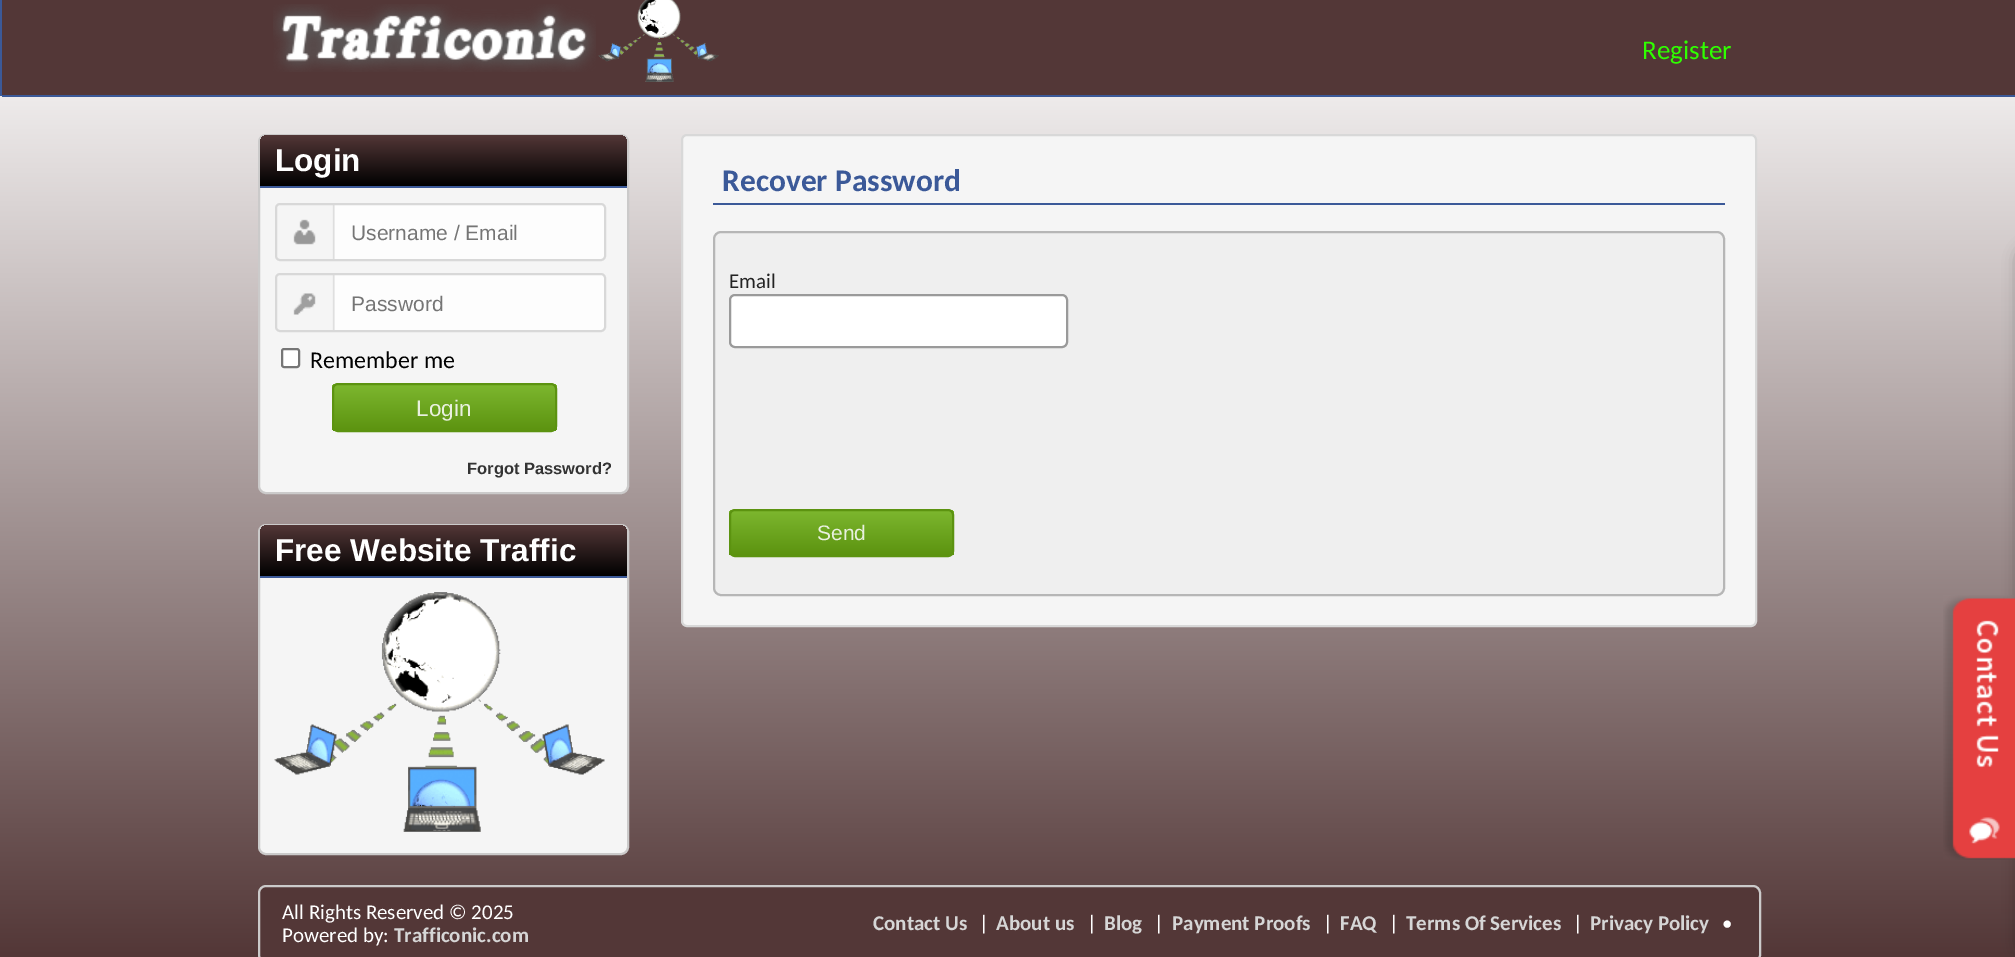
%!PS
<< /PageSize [2015 957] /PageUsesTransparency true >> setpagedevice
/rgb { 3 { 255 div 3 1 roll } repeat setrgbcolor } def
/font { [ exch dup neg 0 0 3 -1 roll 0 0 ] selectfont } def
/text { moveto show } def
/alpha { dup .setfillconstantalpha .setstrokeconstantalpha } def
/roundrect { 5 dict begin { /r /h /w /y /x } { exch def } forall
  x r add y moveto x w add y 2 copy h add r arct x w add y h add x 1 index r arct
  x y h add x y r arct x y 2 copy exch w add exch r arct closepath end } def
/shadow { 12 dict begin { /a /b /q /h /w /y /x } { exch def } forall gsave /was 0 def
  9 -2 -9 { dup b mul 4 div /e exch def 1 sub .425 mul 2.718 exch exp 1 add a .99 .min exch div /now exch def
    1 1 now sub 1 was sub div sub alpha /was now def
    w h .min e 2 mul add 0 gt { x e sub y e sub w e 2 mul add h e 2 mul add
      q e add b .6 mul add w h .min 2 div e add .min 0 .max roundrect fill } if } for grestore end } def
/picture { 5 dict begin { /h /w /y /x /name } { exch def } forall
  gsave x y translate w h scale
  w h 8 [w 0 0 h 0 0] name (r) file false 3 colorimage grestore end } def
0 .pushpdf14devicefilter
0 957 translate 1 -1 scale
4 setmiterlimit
255 255 255 rgb
0 0 2015 957 rectfill
gsave 0 96 moveto 2015 0 rlineto 0 861 rlineto -2015 0 rlineto closepath clip newpath
<< /ShadingType 2 /ColorSpace /DeviceRGB /Coords [1008 0 1008 957] /Extend [true true] /Function << /FunctionType 2 /Domain [0 1] /C0 [1 1 1] /C1 [0.325 0.216 0.216] /N 1 >> >> shfill grestore
83 55 55 rgb
2 0 2013 95 rectfill
59 89 152 rgb
2 95 2013 2 rectfill
0 0 2 96 rectfill
(img_01.rgb) 273 4 323 68 picture
(img_02.rgb) 598 0 121 82 picture
245 245 245 rgb
259 135 369 358 7 roundrect gsave fill grestore
203 202 202 rgb
2 setlinewidth
stroke
gsave 268 135 moveto 351 0 rlineto 4.5 0 8 3.5 8 8 rcurveto 0 43 rlineto -367 0 rlineto 0 -43 rlineto 0 -4.5 3.5 -8 8 -8 rcurveto closepath clip newpath
<< /ShadingType 2 /ColorSpace /DeviceRGB /Coords [443 135 443 186] /Extend [true true] /Function << /FunctionType 2 /Domain [0 1] /C0 [0.325 0.216 0.216] /C1 [0 0 0] /N 1 >> >> shfill grestore
59 89 152 rgb
260 186 367 2 rectfill
253 253 253 rgb
275 203 331 58 5 roundrect fill
(img_03.rgb) 276 203 59 58 picture
216 216 216 rgb
276 204 329 56 4 roundrect stroke
253 253 253 rgb
275 273 331 59 5 roundrect fill
(img_04.rgb) 276 274 59 57 picture
216 216 216 rgb
276 274 329 57 4 roundrect stroke
255 255 255 rgb
282 349 17 18 2 roundrect gsave fill grestore
118 118 118 rgb
stroke
gsave
332 383 225 49 6 roundrect clip newpath
gsave 332 384 moveto 225 0 rlineto 0 47 rlineto -225 0 rlineto closepath clip newpath
<< /ShadingType 2 /ColorSpace /DeviceRGB /Coords [333 384 333 431] /Extend [true true] /Function << /FunctionType 2 /Domain [0 1] /C0 [0.49 0.718 0.184] /C1 [0.361 0.576 0.063] /N 1 >> >> shfill grestore
grestore
92 147 16 rgb
333 384 223 47 5 roundrect stroke
245 245 245 rgb
259 525 369 329 7 roundrect gsave fill grestore
203 202 202 rgb
stroke
gsave 268 525 moveto 351 0 rlineto 4.5 0 8 3.5 8 8 rcurveto 0 43 rlineto -367 0 rlineto 0 -43 rlineto 0 -4.5 3.5 -8 8 -8 rcurveto closepath clip newpath
<< /ShadingType 2 /ColorSpace /DeviceRGB /Coords [443 525 443 576] /Extend [true true] /Function << /FunctionType 2 /Domain [0 1] /C0 [0.325 0.216 0.216] /C1 [0 0 0] /N 1 >> >> shfill grestore
59 89 152 rgb
260 576 367 2 rectfill
(img_05.rgb) 274 592 331 240 picture
245 245 245 rgb
682 135 1074 491 5 roundrect gsave fill grestore
216 216 216 rgb
stroke
59 89 152 rgb
713 203 1012 2 rectfill
239 239 239 rgb
714 232 1010 363 7 roundrect gsave fill grestore
182 182 182 rgb
stroke
255 255 255 rgb
730 295 337 52 5 roundrect gsave fill grestore
154 154 154 rgb
stroke
gsave
729 509 225 48 6 roundrect clip newpath
gsave 729 510 moveto 225 0 rlineto 0 45 rlineto -225 0 rlineto closepath clip newpath
<< /ShadingType 2 /ColorSpace /DeviceRGB /Coords [731 510 731 555] /Extend [true true] /Function << /FunctionType 2 /Domain [0 1] /C0 [0.49 0.718 0.184] /C1 [0.361 0.576 0.063] /N 1 >> >> shfill grestore
grestore
92 147 16 rgb
730 510 223 46 5 roundrect stroke
83 55 55 rgb
259 886 1501 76 7 roundrect gsave fill grestore
203 202 202 rgb
stroke
0 0 0 rgb
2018 246 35 711 15 7.5 0.3 shadow
(img_06.rgb) 1943 595 72 265 picture
/Carlito-Regular 27 font
47 255 0 rgb
(Register) 1642 59 text
/LiberationSans-Bold 31.5 font
255 255 255 rgb
(Login) 275 171 text
/LiberationSans-Regular 21 font
117 117 117 rgb
(Username / Email) 351 240 text
(Password) 351 311 text
/Carlito-Regular 24 font
0 0 0 rgb
(Remember me) 310 368 text
/LiberationSans-Regular 22.5 font
232 240 222 rgb
(Login) 416 416 text
/LiberationSans-Bold 16.5 font
51 51 51 rgb
(Forgot Password?) 467 474 text
/LiberationSans-Bold 31.5 font
255 255 255 rgb
(Free Website Traffic) 275 561 text
/Carlito-Bold 31.5 font
59 89 152 rgb
(Recover Password) 722 191 text
/Carlito-Regular 21 font
34 34 34 rgb
(Email) 729 288 text
/LiberationSans-Regular 21 font
232 240 222 rgb
(Send) 817 540 text
/Carlito-Regular 21 font
255 255 255 rgb
(All Rights Reserved © 2025) 282 919 text
(Powered by:) 282 942 text
/Carlito-Bold 21 font
214 214 214 rgb
(Trafficonic.com) 394 942 text
(Contact Us) 873 930 text
/Carlito-Regular 21 font
255 255 255 rgb
(|) 979 930 text
/Carlito-Bold 21 font
214 214 214 rgb
(About us) 996 930 text
/Carlito-Regular 21 font
255 255 255 rgb
(|) 1087 930 text
/Carlito-Bold 21 font
214 214 214 rgb
(Blog) 1104 930 text
/Carlito-Regular 21 font
255 255 255 rgb
(|) 1154 930 text
/Carlito-Bold 21 font
214 214 214 rgb
(Payment Proofs) 1172 930 text
/Carlito-Regular 21 font
255 255 255 rgb
(|) 1323 930 text
/Carlito-Bold 21 font
214 214 214 rgb
(FAQ) 1340 930 text
/Carlito-Regular 21 font
255 255 255 rgb
(|) 1389 930 text
/Carlito-Bold 21 font
214 214 214 rgb
(Terms Of Services) 1406 930 text
/Carlito-Regular 21 font
255 255 255 rgb
(|) 1573 930 text
/Carlito-Bold 21 font
214 214 214 rgb
(Privacy Policy) 1590 930 text
/Carlito-Regular 21 font
255 255 255 rgb
(•) 1722 930 text
.poppdf14devicefilter showpage
